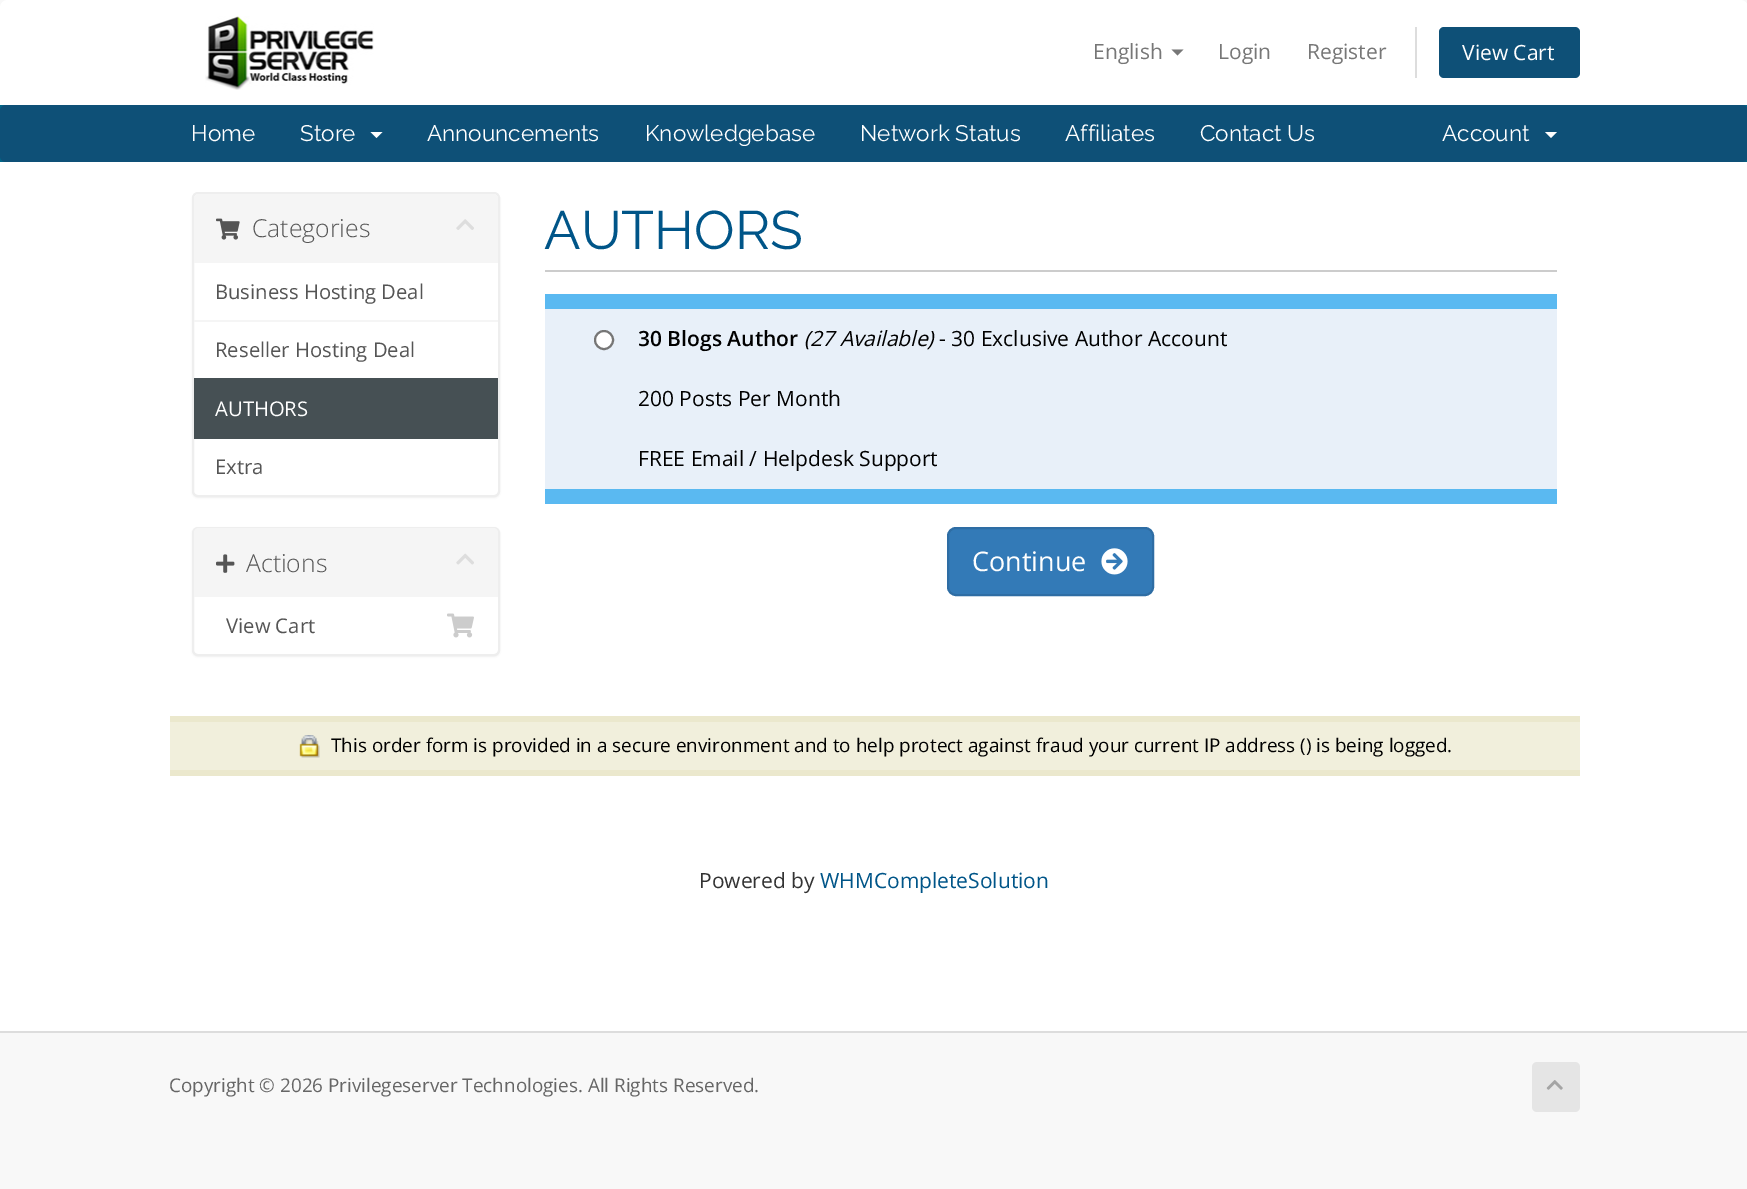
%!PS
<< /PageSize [1747 1189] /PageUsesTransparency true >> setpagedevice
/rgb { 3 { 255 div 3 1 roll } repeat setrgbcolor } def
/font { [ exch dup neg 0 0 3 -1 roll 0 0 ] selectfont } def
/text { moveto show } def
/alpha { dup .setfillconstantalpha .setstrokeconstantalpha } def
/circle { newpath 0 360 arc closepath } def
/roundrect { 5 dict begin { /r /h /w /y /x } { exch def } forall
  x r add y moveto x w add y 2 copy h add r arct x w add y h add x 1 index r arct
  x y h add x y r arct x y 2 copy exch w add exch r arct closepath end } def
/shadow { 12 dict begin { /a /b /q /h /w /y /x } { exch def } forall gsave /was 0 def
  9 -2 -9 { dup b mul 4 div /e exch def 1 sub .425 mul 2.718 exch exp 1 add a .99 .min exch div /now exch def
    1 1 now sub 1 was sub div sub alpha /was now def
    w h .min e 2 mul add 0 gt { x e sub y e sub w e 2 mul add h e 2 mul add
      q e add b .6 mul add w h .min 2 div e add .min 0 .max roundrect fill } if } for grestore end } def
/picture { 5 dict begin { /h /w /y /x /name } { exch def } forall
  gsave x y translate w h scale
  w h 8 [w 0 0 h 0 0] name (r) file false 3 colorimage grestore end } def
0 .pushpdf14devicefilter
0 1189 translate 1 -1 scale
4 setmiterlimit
248 248 248 rgb
0 0 1747 1189 rectfill
255 255 255 rgb
8 0 moveto 1732 0 rlineto 4.5 0 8 3.5 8 8 rcurveto 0 97 rlineto -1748 0 rlineto 0 -97 rlineto 0 -4.5 3.5 -8 8 -8 rcurveto closepath fill
(img_01.rgb) 205 16 169 74 picture
119 119 119 rgb
1171.5 49.5 moveto 12 0 rlineto -6 6 rlineto closepath fill
221 221 221 rgb
1415 27 2 51 rectfill
14 80 119 rgb
1439 27 141 51 5 roundrect fill
0 102 135 rgb
0 105 1747 57 rectfill
14 80 119 rgb
0 105 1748 57 6 roundrect fill
255 255 255 rgb
370.5 132 moveto 12 0 rlineto -6 6 rlineto closepath fill
1545 132 moveto 12 0 rlineto -6 6 rlineto closepath fill
0 162 1747 869 rectfill
0 0 0 rgb
192 194 308 304 6 1 0.05 shadow
255 255 255 rgb
193 193 306 303 5 roundrect gsave fill grestore
238 238 238 rgb
2 setlinewidth
stroke
245 245 245 rgb
199 194 moveto 294 0 rlineto 3 0 5 2 5 5 rcurveto 0 64 rlineto -304 0 rlineto 0 -64 rlineto 0 -3 2 -5 5 -5 rcurveto closepath fill
(img_02.rgb) 216 218 24 22 picture
(img_03.rgb) 456 219 18 11 picture
194 320 304 2 rectfill
70 80 84 rgb
194 378 304 61 rectfill
0 0 0 rgb
192 528 308 129 6 1 0.05 shadow
255 255 255 rgb
193 528 306 127 5 roundrect gsave fill grestore
238 238 238 rgb
stroke
245 245 245 rgb
199 528 moveto 294 0 rlineto 3 0 5 2 5 5 rcurveto 0 64 rlineto -304 0 rlineto 0 -64 rlineto 0 -3 2 -5 5 -5 rcurveto closepath fill
(img_04.rgb) 216 554 19 19 picture
(img_05.rgb) 456 553 18 12 picture
(img_06.rgb) 447 613 27 25 picture
204 204 204 rgb
545 270 1012 2 rectfill
90 185 241 rgb
545 294 1012 15 rectfill
545 489 1012 15 rectfill
232 240 249 rgb
545 309 1012 180 rectfill
255 255 255 rgb
604 340 9 circle gsave fill grestore
118 118 118 rgb
stroke
51 122 183 rgb
948 528 205 67 8 roundrect gsave fill grestore
46 109 164 rgb
stroke
(img_07.rgb) 1101 548 27 27 picture
241 239 220 rgb
170 722 1410 48 rectfill
235 232 205 rgb
170 716 1410 6 rectfill
170 770 1410 6 rectfill
(img_08.rgb) 299 735 21 23 picture
221 221 221 rgb
0 1031 1747 2 rectfill
229 229 229 rgb
1532 1062 48 50 5 roundrect fill
(img_09.rgb) 1546 1080 17 10 picture
/OpenSans-Regular 21 font
119 119 119 rgb
(English) 1093 59 text
(Login) 1218 59 text
(Register) 1307 59 text
255 255 255 rgb
(View Cart) 1462 60 text
/Raleway-Regular 22.5 font
(Home) 191 141 text
(Store) 300 141 text
(Announcements) 427 141 text
(Knowledgebase) 645 141 text
(Network Status) 860 141 text
(Affiliates) 1065 141 text
(Contact Us) 1200 141 text
(Account) 1442 141 text
/OpenSans-Light 24.75 font
85 85 85 rgb
(Categories) 252 237 text
/OpenSans-Regular 20.25 font
(Business Hosting Deal) 215 299 text
(Reseller Hosting Deal) 215 357 text
255 255 255 rgb
(AUTHORS) 215 416 text
85 85 85 rgb
(Extra) 215 474 text
/OpenSans-Light 24.75 font
(Actions) 246 572 text
/OpenSans-Regular 20.25 font
(View Cart) 226 633 text
/Raleway-Regular 54 font
0 85 136 rgb
(AUTHORS) 544 249 text
/OpenSans-SemiBold 21 font
0 0 0 rgb
(30 Blogs Author) 638 346 text
/OpenSans-Italic 21 font
(\(27 Available\)) 804 346 text
/OpenSans-Regular 21 font
(- 30 Exclusive Author Account) 939 346 text
(200 Posts Per Month) 638 406 text
(FREE Email / Helpdesk Support) 638 466 text
/OpenSans-Regular 27 font
255 255 255 rgb
(Continue) 972 571 text
/OpenSans-Regular 18.9 font
0 0 0 rgb
(This order form is provided in a secure environment and to help protect against fraud your current IP address \(\) is being logged.) 331 752 text
/OpenSans-Regular 21 font
51 51 51 rgb
(Powered by) 699 888 text
0 85 136 rgb
(WHMCompleteSolution) 820 888 text
/OpenSans-Regular 18.9 font
102 102 102 rgb
(Copyright © 2026 Privilegeserver Technologies. All Rights Reserved.) 169 1092 text
.poppdf14devicefilter showpage
